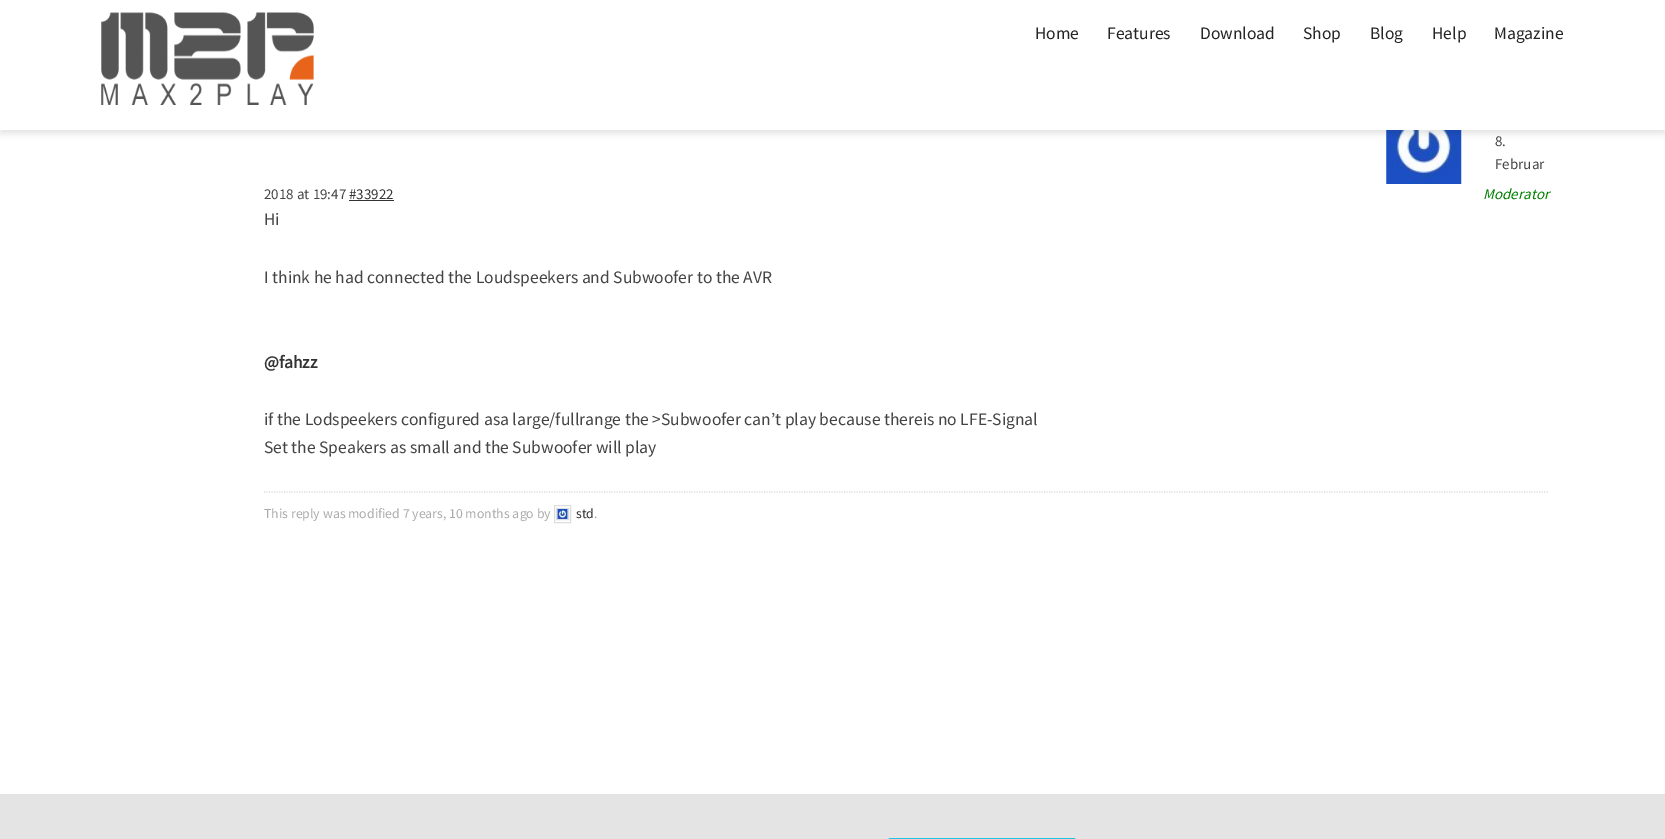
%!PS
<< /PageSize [1665 839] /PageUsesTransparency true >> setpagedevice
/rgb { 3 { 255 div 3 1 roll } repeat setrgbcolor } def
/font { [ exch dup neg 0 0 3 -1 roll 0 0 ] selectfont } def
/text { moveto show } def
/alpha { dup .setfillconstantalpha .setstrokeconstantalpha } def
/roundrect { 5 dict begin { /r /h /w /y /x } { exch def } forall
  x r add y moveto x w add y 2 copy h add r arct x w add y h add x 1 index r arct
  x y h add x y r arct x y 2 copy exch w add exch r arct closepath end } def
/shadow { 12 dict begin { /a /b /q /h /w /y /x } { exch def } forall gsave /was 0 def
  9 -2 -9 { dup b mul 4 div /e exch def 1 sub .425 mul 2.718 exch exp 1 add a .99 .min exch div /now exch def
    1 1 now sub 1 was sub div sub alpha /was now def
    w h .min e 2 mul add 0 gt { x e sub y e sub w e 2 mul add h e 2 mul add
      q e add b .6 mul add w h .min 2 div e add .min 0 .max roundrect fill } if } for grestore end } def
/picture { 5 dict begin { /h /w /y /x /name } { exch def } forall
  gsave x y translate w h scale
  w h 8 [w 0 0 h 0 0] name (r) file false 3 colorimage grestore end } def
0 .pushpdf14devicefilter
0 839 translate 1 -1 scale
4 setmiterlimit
255 255 255 rgb
0 0 1665 839 rectfill
(img_02.rgb) 1386 130 76 54 picture
0 0 0 rgb
0 4 1665 130 0 3 0.1 shadow
255 255 255 rgb
0 0 1665 130 rectfill
(img_01.rgb) 101 12 213 93 picture
51 51 51 rgb
349 200 45 1 rectfill
221 221 221 rgb
1.2 setlinewidth
[1.25 1.25] 0 setdash
264 492 moveto 1285 0 rlineto stroke
1 setlinewidth
[] 0 setdash
554.5 505.5 16 17 rectstroke
556.5 508.5 12 11 rectstroke
(img_03.rgb) 557 509 11 10 picture
228 228 228 rgb
0 794 1665 45 rectfill
29 198 223 rgb
888 838 188 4 2.5 roundrect fill
/SourceSansPro-Regular 17.5 font
37 37 37 rgb
(Home) 1035 39 text
(Features) 1107 39 text
(Download) 1200 39 text
(Shop) 1303 39 text
(Blog) 1370 39 text
(Help) 1432 39 text
(Magazine) 1494 39 text
/SourceSansPro-Regular 15 font
68 68 68 rgb
(8.) 1495 146 text
(Februar) 1495 169 text
(2018 at 19:47) 264 199 text
51 51 51 rgb
(#33922) 349 199 text
/SourceSansPro-Italic 15 font
0 128 0 rgb
(Moderator) 1483 199 text
/SourceSansPro-Regular 17.5 font
68 68 68 rgb
(Hi) 264 225 text
(I think he had connected the Loudspeekers and Subwoofer to the AVR) 264 283 text
/SourceSansPro-Bold 17.5 font
51 51 51 rgb
(@fahzz) 264 368 text
/SourceSansPro-Regular 17.5 font
68 68 68 rgb
(if the Lodspeekers configured asa large/fullrange the >Subwoofer can’t play because thereis no LFE-Signal) 264 425 text
(Set the Speakers as small and the Subwoofer will play) 264 453 text
/SourceSansPro-Regular 13.75 font
170 170 170 rgb
(This reply was modified 7 years, 10 months ago by) 264 518 text
51 51 51 rgb
(std) 576 518 text
170 170 170 rgb
(.) 594 518 text
.poppdf14devicefilter showpage
